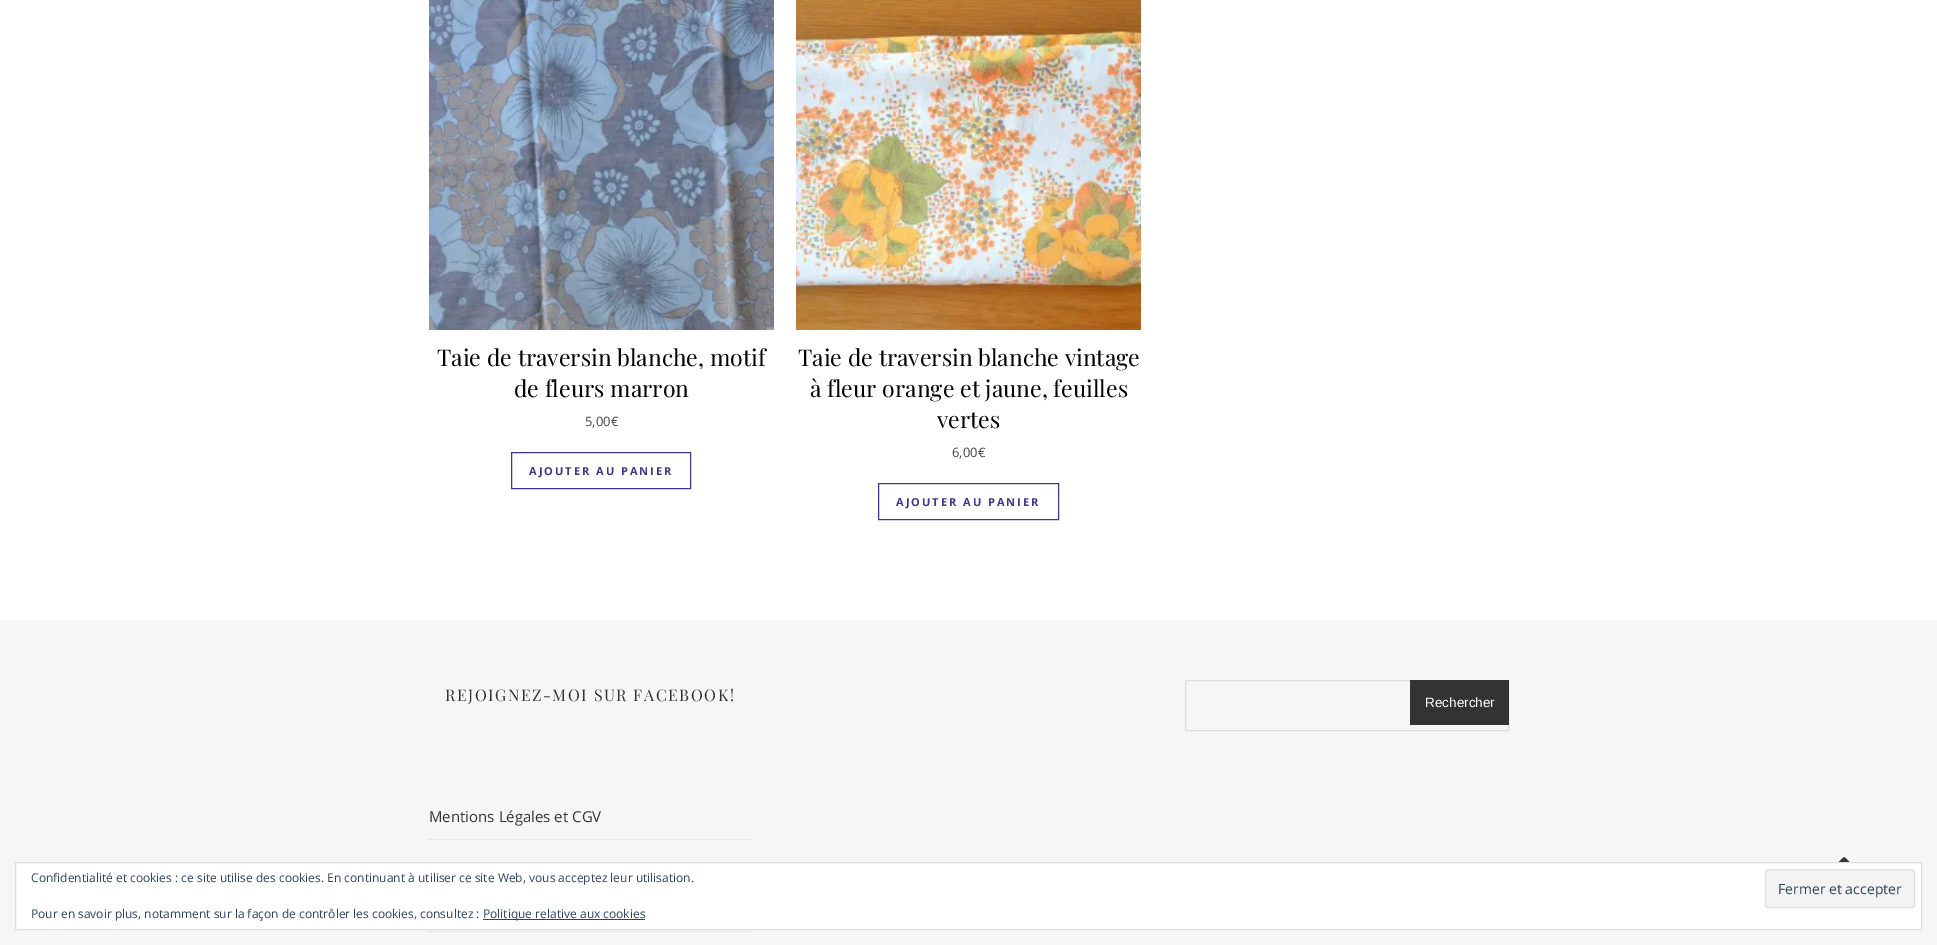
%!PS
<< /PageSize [1937 945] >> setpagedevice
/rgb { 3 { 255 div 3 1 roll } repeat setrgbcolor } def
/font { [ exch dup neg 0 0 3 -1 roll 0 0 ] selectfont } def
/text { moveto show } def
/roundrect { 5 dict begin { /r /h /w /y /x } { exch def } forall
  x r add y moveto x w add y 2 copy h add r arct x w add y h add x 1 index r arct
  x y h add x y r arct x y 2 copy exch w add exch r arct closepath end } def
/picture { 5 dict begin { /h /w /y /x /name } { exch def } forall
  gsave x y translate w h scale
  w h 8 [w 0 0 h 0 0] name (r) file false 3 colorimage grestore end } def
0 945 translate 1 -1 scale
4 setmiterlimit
255 255 255 rgb
0 0 1937 945 rectfill
(img_01.rgb) 429 0 345 330 picture
58 57 142 rgb
511.5 452.5 179 36 rectstroke
(img_02.rgb) 796 0 345 330 picture
878.5 483.5 180 36 rectstroke
246 246 246 rgb
0 620 1937 325 rectfill
224 219 219 rgb
429 694 1 1 rectfill
751 694 2 1 rectfill
1185.5 680.5 323 50 rectstroke
51 51 51 rgb
1410 680 99 45 rectfill
224 219 219 rgb
[1 1] 0 setdash
429 839.5 moveto 324 0 rlineto stroke
429 931.5 moveto 324 0 rlineto stroke
(img_03.rgb) 1838 857 12 5 picture
255 255 255 rgb
15.5 862.5 moveto 1906 0 rlineto 0 67 rlineto -1906 0 rlineto closepath gsave fill grestore
222 222 222 rgb
[] 0 setdash
stroke
243 243 243 rgb
1765.5 869.5 149 38 2.5 roundrect gsave fill grestore
222 222 222 rgb
stroke
46 68 103 rgb
483 919 162 1 rectfill
/PlayfairDisplay-Regular 23 font
3 3 3 rgb
(Taie de traversin blanche, motif) 437 366 text
(de fleurs marron) 514 397 text
/OpenSans-Regular 13 font
70 70 70 rgb
(5,00€) 585 426 text
/OpenSans-Bold 11 font
58 57 142 rgb
529 475 moveto 2 0 (AJOUTER AU PANIER) ashow
/PlayfairDisplay-Regular 23 font
3 3 3 rgb
(Taie de traversin blanche vintage) 798 366 text
(à fleur orange et jaune, feuilles) 810 397 text
(vertes) 937 428 text
/OpenSans-Regular 13 font
70 70 70 rgb
(6,00€) 952 457 text
/OpenSans-Bold 11 font
58 57 142 rgb
896 506 moveto 2 0 (AJOUTER AU PANIER) ashow
/PlayfairDisplay-Regular 16 font
51 51 51 rgb
445 701 moveto 1.5 0 (REJOIGNEZ-MOI SUR FACEBOOK!) ashow
/LiberationSans-Regular 13.5 font
255 255 255 rgb
(Rechercher) 1425 707 text
/OpenSans-Regular 15 font
51 51 51 rgb
(Mentions Légales et CGV) 429 822 text
/OpenSans-Regular 12 font
46 68 103 rgb
(Confidentialité et cookies : ce site utilise des cookies. En continuant à utiliser ce site Web, vous acceptez leur utilisation.) 31 882 text
/OpenSans-Regular 14 font
46 68 83 rgb
(Fermer et accepter) 1778 894 text
/OpenSans-Regular 12 font
46 68 103 rgb
(Pour en savoir plus, notamment sur la façon de contrôler les cookies, consultez :) 31 918 text
(Politique relative aux cookies) 483 918 text
showpage
